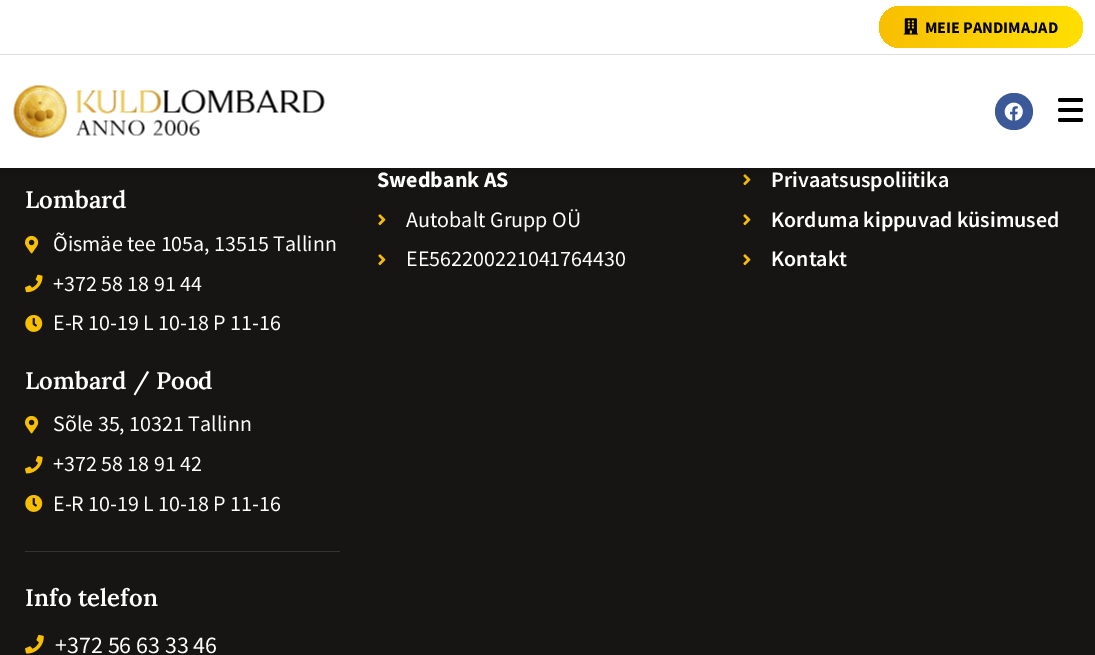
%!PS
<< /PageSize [1095 655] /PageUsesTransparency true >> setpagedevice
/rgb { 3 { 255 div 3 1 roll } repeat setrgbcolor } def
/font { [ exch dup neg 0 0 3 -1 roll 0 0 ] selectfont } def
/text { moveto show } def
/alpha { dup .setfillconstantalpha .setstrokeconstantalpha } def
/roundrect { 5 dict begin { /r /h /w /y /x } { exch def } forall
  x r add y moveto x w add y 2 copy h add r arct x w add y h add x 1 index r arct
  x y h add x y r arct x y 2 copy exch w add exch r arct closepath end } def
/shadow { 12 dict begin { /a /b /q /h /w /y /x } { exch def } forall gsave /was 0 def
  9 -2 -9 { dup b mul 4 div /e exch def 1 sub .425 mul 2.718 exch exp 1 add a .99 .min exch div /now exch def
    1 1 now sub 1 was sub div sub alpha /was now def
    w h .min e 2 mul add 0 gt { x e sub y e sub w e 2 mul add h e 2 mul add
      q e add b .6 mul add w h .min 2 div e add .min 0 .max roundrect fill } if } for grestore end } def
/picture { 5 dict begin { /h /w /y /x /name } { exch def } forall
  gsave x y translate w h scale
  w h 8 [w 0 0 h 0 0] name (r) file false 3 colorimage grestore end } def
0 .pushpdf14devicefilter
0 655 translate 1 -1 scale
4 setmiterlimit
22 21 19 rgb
0 0 1095 655 rectfill
(img_09.rgb) 743 174 8 12 picture
0 0 0 rgb
0 59 1095 112 0 7.5 0.22 shadow
255 255 255 rgb
0 0 1095 54 rectfill
222 222 222 rgb
0 54 1095 1 rectfill
gsave 879 6 204 42 21 roundrect clip newpath
<< /ShadingType 2 /ColorSpace /DeviceRGB /Coords [879 27 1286 27] /Extend [true true] /Function << /FunctionType 3 /Domain [0 1] /Functions [<< /FunctionType 2 /Domain [0 1] /C0 [0.973 0.749 0.008] /C1 [1 0.875 0.004] /N 1 >> << /FunctionType 2 /Domain [0 1] /C0 [1 0.875 0.004] /C1 [0.973 0.749 0.008] /N 1 >>] /Bounds [0.51] /Encode [0 1 0 1] >> >> shfill grestore
(img_01.rgb) 903 18 15 17 picture
255 255 255 rgb
0 55 1095 113 rectfill
(img_02.rgb) 13 84 312 54 picture
59 89 152 rgb
995 93 38 37 18.5 roundrect fill
(img_03.rgb) 1004 102 19 19 picture
0 0 0 rgb
1058 108 25 4 2 roundrect fill
1058 98 25 4 2 roundrect fill
1058 118 25 4 2 roundrect fill
(img_04.rgb) 25 235 14 19 picture
(img_05.rgb) 25 274 18 19 picture
(img_06.rgb) 25 315 18 17 picture
(img_04.rgb) 25 415 14 19 picture
(img_07.rgb) 25 456 18 18 picture
(img_06.rgb) 25 495 18 17 picture
52 51 50 rgb
25 551 315 1 rectfill
(img_08.rgb) 25 634 19 20 picture
(img_09.rgb) 378 214 8 12 picture
(img_09.rgb) 378 254 8 12 picture
(img_09.rgb) 743 214 8 12 picture
(img_09.rgb) 743 254 8 12 picture
/SourceSansPro-Bold 16.25 font
0 0 0 rgb
(MEIE PANDIMAJAD) 925 33 text
/Lora-SemiBold 24 font
255 255 255 rgb
(Lombard) 25 208 text
/SourceSansPro-Regular 22 font
(Õismäe tee 105a, 13515 Tallinn) 53 251 text
(+372 58 18 91 44) 53 291 text
(E-R 10-19 L 10-18 P 11-16) 53 330 text
/Lora-SemiBold 24 font
(Lombard / Pood) 25 389 text
/SourceSansPro-Regular 22 font
(Sõle 35, 10321 Tallinn) 53 431 text
(+372 58 18 91 42) 53 471 text
(E-R 10-19 L 10-18 P 11-16) 53 511 text
/Lora-SemiBold 24 font
(Info telefon) 25 606 text
/SourceSansPro-Regular 24 font
(+372 56 63 33 46) 55 653 text
/SourceSansPro-Bold 22 font
(Swedbank AS) 377 187 text
/SourceSansPro-Regular 22 font
(Autobalt Grupp OÜ) 406 227 text
(EE562200221041764430) 406 266 text
/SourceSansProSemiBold-SemiBold 22 font
(Privaatsuspoliitika) 771 187 text
(Korduma kippuvad küsimused) 771 227 text
(Kontakt) 771 266 text
.poppdf14devicefilter showpage
